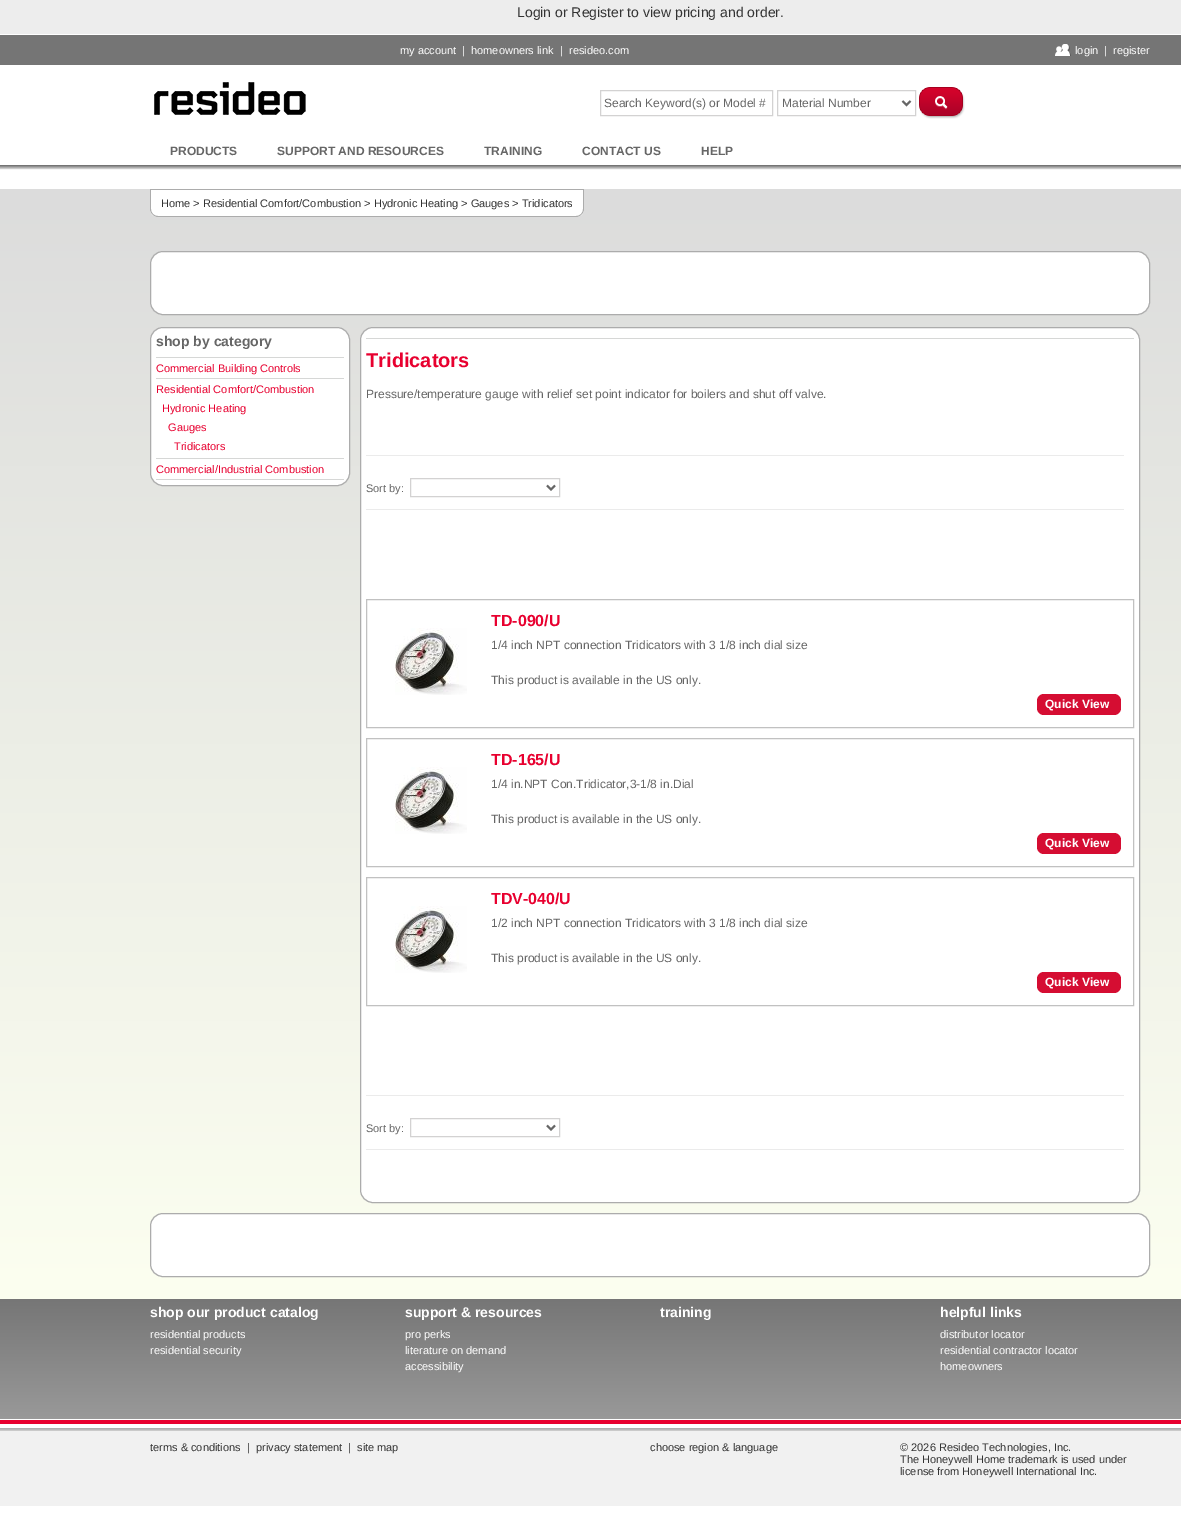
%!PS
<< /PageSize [1181 1534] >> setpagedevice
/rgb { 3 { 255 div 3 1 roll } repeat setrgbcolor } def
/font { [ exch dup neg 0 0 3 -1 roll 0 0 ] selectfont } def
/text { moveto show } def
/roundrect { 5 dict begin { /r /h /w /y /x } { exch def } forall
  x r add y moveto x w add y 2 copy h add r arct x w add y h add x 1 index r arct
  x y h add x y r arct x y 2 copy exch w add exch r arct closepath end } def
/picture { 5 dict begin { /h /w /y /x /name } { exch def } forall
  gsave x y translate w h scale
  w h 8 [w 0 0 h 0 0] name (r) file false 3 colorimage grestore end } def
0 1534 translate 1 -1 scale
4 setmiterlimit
255 255 255 rgb
0 0 1181 1534 rectfill
237 237 237 rgb
0 0 1181 34 rectfill
117 117 117 rgb
0 35 1181 30 rectfill
(img_01.rgb) 1055 44 16 12 picture
(img_02.rgb) 154 82 152 33 picture
211 210 210 rgb
600.5 90.5 172 25 rectstroke
777.5 90.5 138 25 rectstroke
102 102 102 rgb
2 setlinewidth
902.5 101 moveto 4 4 rlineto 4 -4 rlineto stroke
(img_03.rgb) 919 87 46 32 picture
gsave 0 165 moveto 1181 0 rlineto 0 5 rlineto -1181 0 rlineto closepath clip newpath
<< /ShadingType 2 /ColorSpace /DeviceRGB /Coords [0 165 0 170] /Extend [true true] /Function << /FunctionType 2 /Domain [0 1] /C0 [0.4 0.4 0.4] /C1 [0.961 0.961 0.961] /N 1 >> >> shfill grestore
gsave 0 189 moveto 1181 0 rlineto 0 1110 rlineto -1181 0 rlineto closepath clip newpath
<< /ShadingType 2 /ColorSpace /DeviceRGB /Coords [0 189 0 1299] /Extend [true true] /Function << /FunctionType 2 /Domain [0 1] /C0 [0.863 0.863 0.863] /C1 [0.988 1 0.941] /N 1 >> >> shfill grestore
255 255 255 rgb
150 189 moveto 40 0 rlineto 0 28 rlineto -32 0 rlineto -4.5 0 -8 -3.5 -8 -8 rcurveto closepath fill
172 172 172 rgb
150 189 moveto 40 0 rlineto 0 28 rlineto -32 0 rlineto -4 0 -8 -4 -8 -8 rcurveto closepath 151 190 moveto 39 0 rlineto 0 26 rlineto -32 0 rlineto -4 0 -7 -3 -7 -7 rcurveto closepath eofill
255 255 255 rgb
190 190 319 26 rectfill
172 172 172 rgb
190 189 319 1 rectfill
190 216 319 1 rectfill
255 255 255 rgb
509 189 moveto 75 0 rlineto 0 20 rlineto 0 4.5 -3.5 8 -8 8 rcurveto -67 0 rlineto closepath fill
172 172 172 rgb
509 189 moveto 75 0 rlineto 0 20 rlineto 0 4 -4 8 -8 8 rcurveto -67 0 rlineto closepath 509 190 moveto 74 0 rlineto 0 19 rlineto 0 4 -3 7 -7 7 rcurveto -67 0 rlineto closepath eofill
255 255 255 rgb
150.5 251.5 999 63 12.5 roundrect gsave fill grestore
172 172 172 rgb
1 setlinewidth
stroke
255 255 255 rgb
150.5 327.5 199 158 12.5 roundrect gsave fill grestore
172 172 172 rgb
stroke
214 215 214 rgb
156 479 188 1 rectfill
156 357 188 1 rectfill
156 378 188 1 rectfill
156 458 188 1 rectfill
255 255 255 rgb
360.5 327.5 779 875 12.5 roundrect gsave fill grestore
172 172 172 rgb
stroke
214 215 214 rgb
366 338 768 1 rectfill
235 235 235 rgb
366 455 758 1 rectfill
366 509 758 1 rectfill
211 210 210 rgb
410.5 478.5 149 18 rectstroke
102 102 102 rgb
2 setlinewidth
547 485.5 moveto 4 4 rlineto 4 -4 rlineto stroke
193 193 193 rgb
1 setlinewidth
366.5 599.5 767 128 rectstroke
(img_04.rgb) 395 628 72 67 picture
213 13 50 rgb
1037 694 84 21 7 roundrect fill
193 193 193 rgb
366.5 738.5 767 128 rectstroke
(img_04.rgb) 395 767 72 67 picture
213 13 50 rgb
1037 833 84 21 7 roundrect fill
193 193 193 rgb
366.5 877.5 767 128 rectstroke
(img_04.rgb) 395 906 72 67 picture
213 13 50 rgb
1037 972 84 21 7 roundrect fill
235 235 235 rgb
366 1095 758 1 rectfill
366 1149 758 1 rectfill
211 210 210 rgb
410.5 1118.5 149 18 rectstroke
102 102 102 rgb
2 setlinewidth
547 1125.5 moveto 4 4 rlineto 4 -4 rlineto stroke
255 255 255 rgb
150.5 1213.5 999 63 12.5 roundrect gsave fill grestore
172 172 172 rgb
1 setlinewidth
stroke
gsave 0 1299 moveto 1181 0 rlineto 0 120 rlineto -1181 0 rlineto closepath clip newpath
<< /ShadingType 2 /ColorSpace /DeviceRGB /Coords [0 1299 0 1419] /Extend [true true] /Function << /FunctionType 2 /Domain [0 1] /C0 [0.463 0.463 0.463] /C1 [0.6 0.6 0.6] /N 1 >> >> shfill grestore
232 0 47 rgb
0 1420 1181 4 rectfill
gsave 0 1428 moveto 1181 0 rlineto 0 3 rlineto -1181 0 rlineto closepath clip newpath
<< /ShadingType 2 /ColorSpace /DeviceRGB /Coords [0 1428 0 1431] /Extend [true true] /Function << /FunctionType 2 /Domain [0 1] /C0 [0.663 0.663 0.663] /C1 [0.792 0.792 0.792] /N 1 >> >> shfill grestore
241 241 241 rgb
0 1431 1181 75 rectfill
/LiberationSans-Regular 14 font
51 51 51 rgb
(Login or Register to view pricing and order.) 517 17 text
/LiberationSans-Regular 11 font
255 255 255 rgb
(my account) 400 54 text
(|) 462 54 text
(homeowners link) 471 54 text
(|) 560 54 text
(resideo.com) 569 54 text
(login) 1075 54 text
(|) 1104 54 text
(register) 1113 54 text
/LiberationSans-Regular 12 font
102 102 102 rgb
(Search Keyword\(s\) or Model #) 604 107 text
(Material Number) 782 107 text
/LiberationSans-Bold 12 font
(PRODUCTS) 170 155 text
(SUPPORT AND RESOURCES) 277 155 text
(TRAINING) 484 155 text
(CONTACT US) 582 155 text
(HELP) 701 155 text
/LiberationSans-Regular 11 font
51 51 51 rgb
(Home > Residential Comfort/Combustion > Hydronic Heating > Gauges > Tridicators) 161 207 text
/LiberationSans-Bold 14 font
102 102 102 rgb
(shop by category) 156 346 text
/LiberationSans-Regular 11 font
232 0 47 rgb
(Commercial Building Controls) 156 372 text
(Residential Comfort/Combustion) 156 393 text
(Hydronic Heating) 162 412 text
(Gauges) 168 431 text
(Tridicators) 174 450 text
(Commercial/Industrial Combustion) 156 473 text
/LiberationSans-Bold 20 font
(Tridicators) 366 367 text
/LiberationSans-Regular 12 font
102 102 102 rgb
(Pressure/temperature gauge with relief set point indicator for boilers and shut off valve.) 366 398 text
/LiberationSans-Regular 11 font
(Sort by:) 366 492 text
/LiberationSans-Bold 16 font
232 0 47 rgb
(TD-090/U) 491 626 text
/LiberationSans-Regular 12 font
102 102 102 rgb
(1/4 inch NPT connection Tridicators with 3 1/8 inch dial size) 491 649 text
(This product is available in the US only.) 491 684 text
/LiberationSans-Bold 12 font
255 255 255 rgb
(Quick View) 1045 708 text
/LiberationSans-Bold 16 font
232 0 47 rgb
(TD-165/U) 491 765 text
/LiberationSans-Regular 12 font
102 102 102 rgb
(1/4 in.NPT Con.Tridicator,3-1/8 in.Dial) 491 788 text
(This product is available in the US only.) 491 823 text
/LiberationSans-Bold 12 font
255 255 255 rgb
(Quick View) 1045 847 text
/LiberationSans-Bold 16 font
232 0 47 rgb
(TDV-040/U) 491 904 text
/LiberationSans-Regular 12 font
102 102 102 rgb
(1/2 inch NPT connection Tridicators with 3 1/8 inch dial size) 491 927 text
(This product is available in the US only.) 491 962 text
/LiberationSans-Bold 12 font
255 255 255 rgb
(Quick View) 1045 986 text
/LiberationSans-Regular 11 font
102 102 102 rgb
(Sort by:) 366 1132 text
/LiberationSans-Bold 14 font
255 255 255 rgb
(shop our product catalog) 150 1317 text
/LiberationSans-Regular 11 font
(residential products) 150 1338 text
(residential security) 150 1354 text
/LiberationSans-Bold 14 font
(support & resources) 405 1317 text
/LiberationSans-Regular 11 font
(pro perks) 405 1338 text
(literature on demand) 405 1354 text
(accessibility) 405 1370 text
/LiberationSans-Bold 14 font
(training) 660 1317 text
(helpful links) 940 1317 text
/LiberationSans-Regular 11 font
(distributor locator) 940 1338 text
(residential contractor locator) 940 1354 text
(homeowners) 940 1370 text
51 51 51 rgb
(terms & conditions) 150 1451 text
(|) 247 1451 text
(privacy statement) 256 1451 text
(|) 348 1451 text
(site map) 357 1451 text
(choose region & language) 650 1451 text
(© 2026 Resideo Technologies, Inc.) 900 1451 text
(The Honeywell Home trademark is used under) 900 1463 text
(license from Honeywell International Inc.) 900 1475 text
showpage
